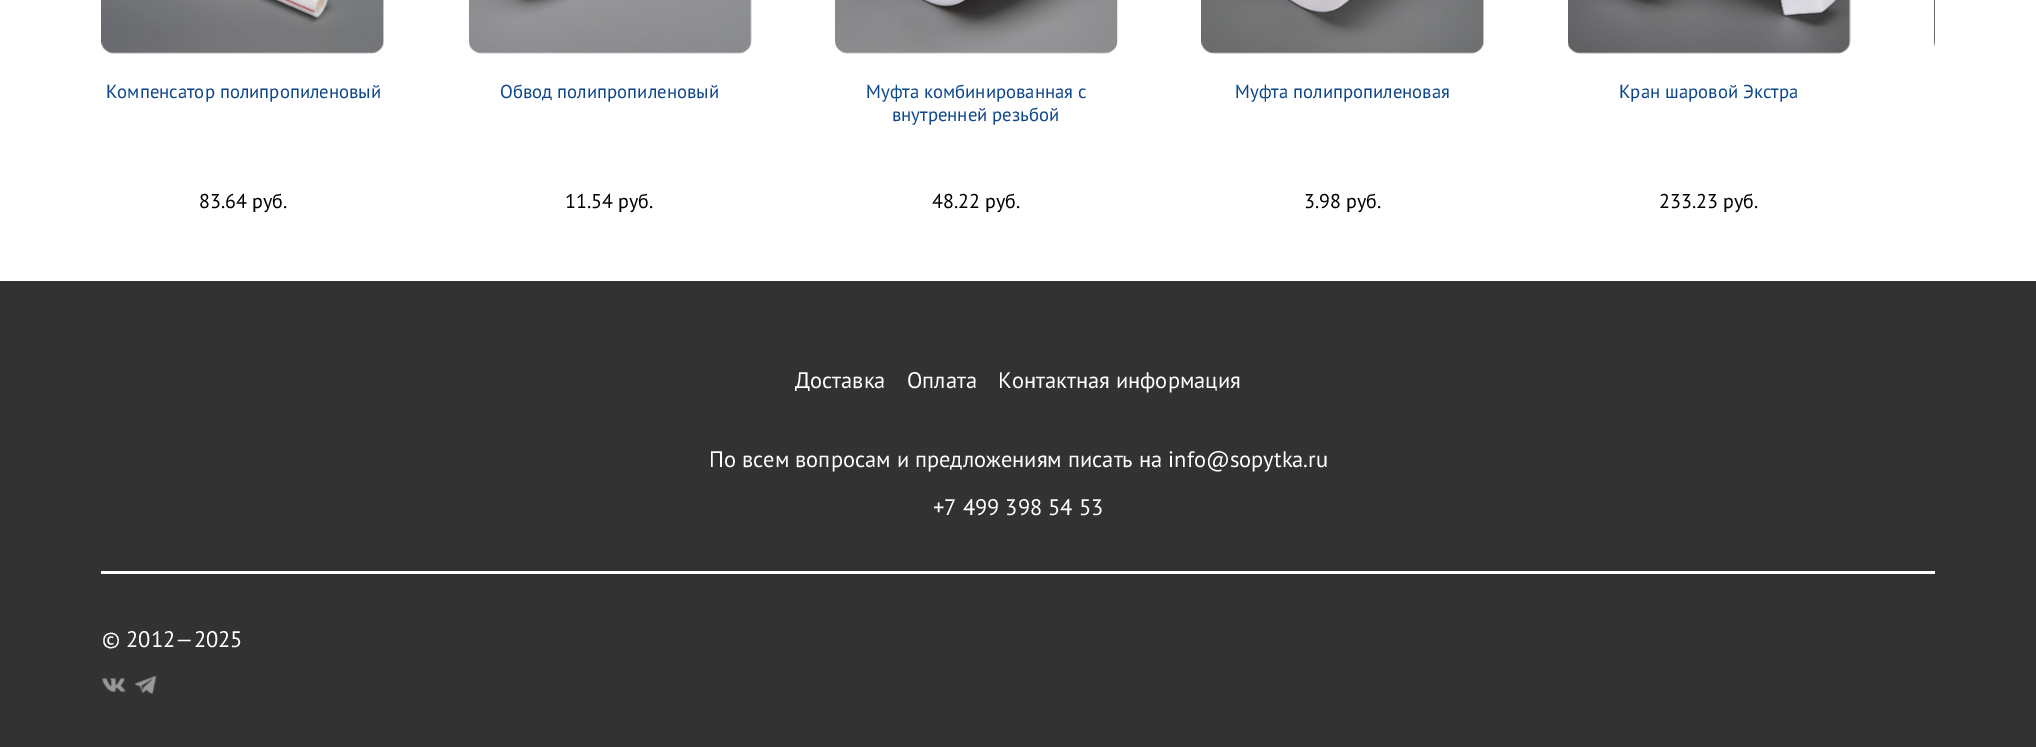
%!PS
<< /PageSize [2036 747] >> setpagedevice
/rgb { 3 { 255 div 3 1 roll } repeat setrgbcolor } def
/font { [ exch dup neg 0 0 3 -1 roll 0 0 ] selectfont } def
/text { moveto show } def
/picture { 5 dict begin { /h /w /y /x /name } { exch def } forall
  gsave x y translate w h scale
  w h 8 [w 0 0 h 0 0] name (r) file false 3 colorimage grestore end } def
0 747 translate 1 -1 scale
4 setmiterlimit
255 255 255 rgb
0 0 2036 747 rectfill
(img_01.rgb) 1934 0 1 48 picture
(img_02.rgb) 101 0 283 54 picture
(img_03.rgb) 469 0 283 54 picture
(img_04.rgb) 835 0 283 54 picture
(img_05.rgb) 1201 0 283 54 picture
(img_06.rgb) 1568 0 283 54 picture
50 50 50 rgb
0 281 2036 466 rectfill
255 255 255 rgb
101 571 1834 3 rectfill
(img_07.rgb) 102 678 24 15 picture
(img_08.rgb) 135 676 22 18 picture
/PTSans-Regular 18.75 font
14 70 139 rgb
(Компенсатор полипропиленовый) 106 98 text
/PTSans-Regular 20 font
0 0 0 rgb
(83.64 руб.) 199 208 text
/PTSans-Regular 18.75 font
14 70 139 rgb
(Обвод полипропиленовый) 500 98 text
/PTSans-Regular 20 font
0 0 0 rgb
(11.54 руб.) 565 208 text
/PTSans-Regular 18.75 font
14 70 139 rgb
(Муфта комбинированная с) 866 98 text
(внутренней резьбой) 892 121 text
/PTSans-Regular 20 font
0 0 0 rgb
(48.22 руб.) 932 208 text
/PTSans-Regular 18.75 font
14 70 139 rgb
(Муфта полипропиленовая) 1235 98 text
/PTSans-Regular 20 font
0 0 0 rgb
(3.98 руб.) 1304 208 text
/PTSans-Regular 18.75 font
14 70 139 rgb
(Кран шаровой Экстра) 1619 98 text
/PTSans-Regular 20 font
0 0 0 rgb
(233.23 руб.) 1659 208 text
/PTSans-Regular 22.5 font
255 255 255 rgb
(Доставка) 795 388 text
(Оплата) 907 388 text
(Контактная информация) 998 388 text
(По всем вопросам и предложениям писать на info@sopytka.ru) 709 467 text
(+7 499 398 54 53) 933 515 text
(© 2012—2025) 102 647 text
showpage
